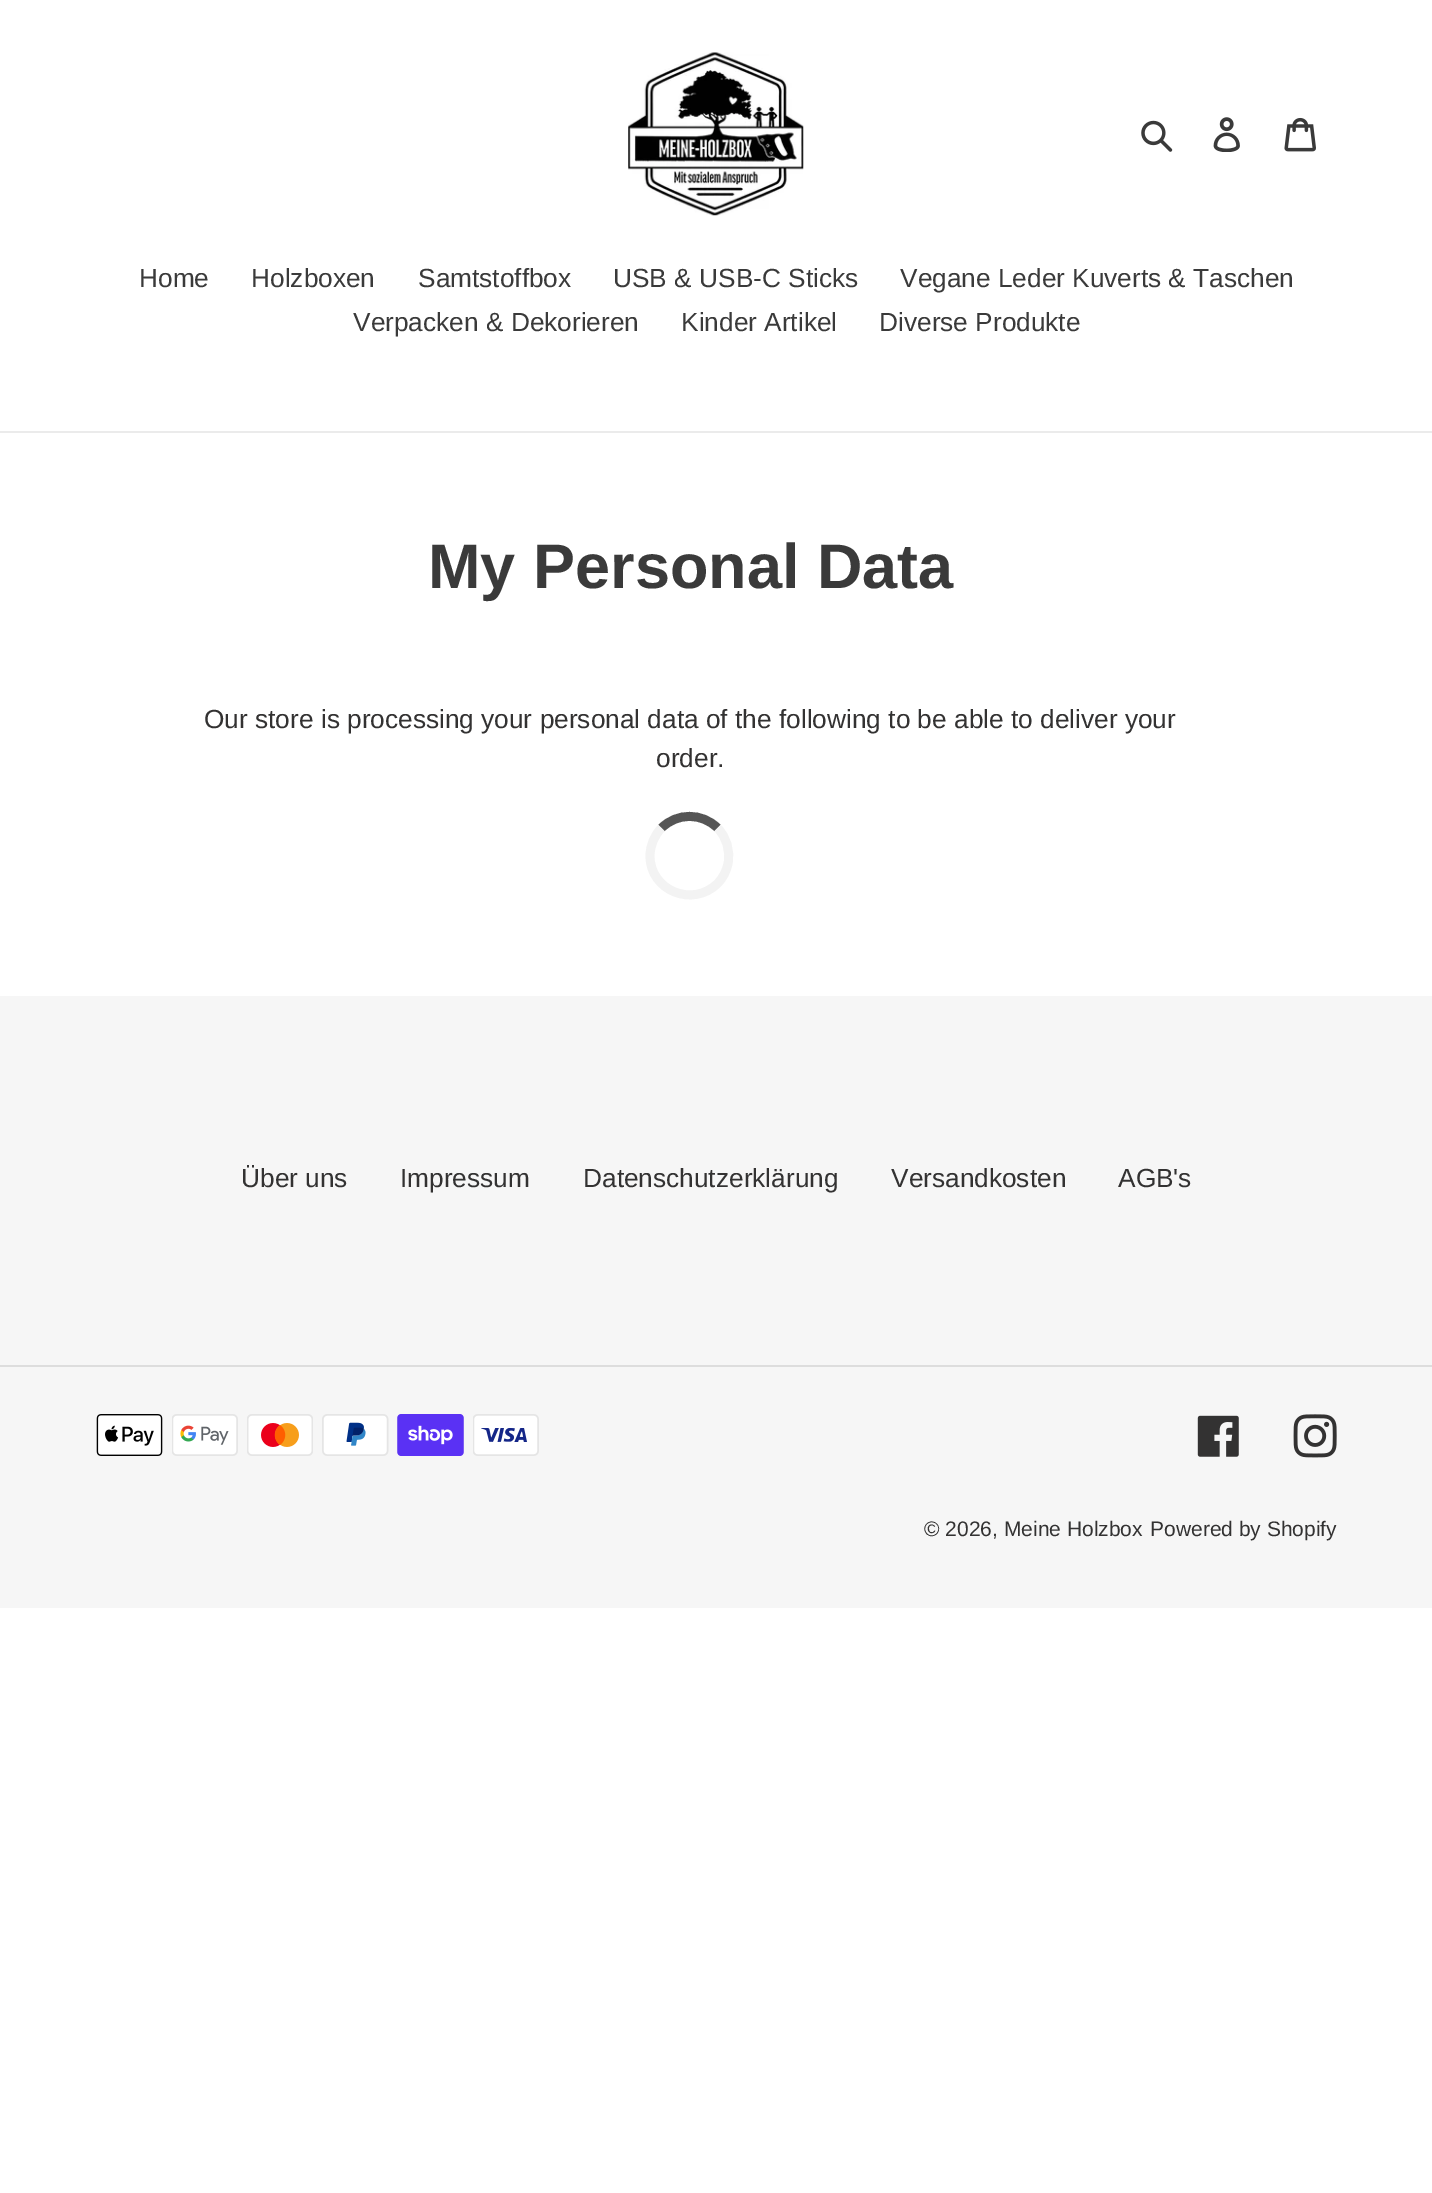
%!PS
<< /PageSize [1432 2193] >> setpagedevice
/rgb { 3 { 255 div 3 1 roll } repeat setrgbcolor } def
/font { [ exch dup neg 0 0 3 -1 roll 0 0 ] selectfont } def
/text { moveto show } def
/picture { 5 dict begin { /h /w /y /x /name } { exch def } forall
  gsave x y translate w h scale
  w h 8 [w 0 0 h 0 0] name (r) file false 3 colorimage grestore end } def
0 2193 translate 1 -1 scale
4 setmiterlimit
255 255 255 rgb
0 0 1432 2193 rectfill
(img_01.rgb) 628 52 176 164 picture
(img_02.rgb) 1141 120 32 32 picture
(img_03.rgb) 1213 117 27 35 picture
(img_04.rgb) 1284 117 32 35 picture
235 235 235 rgb
0 431 1432 2 rectfill
85 85 85 rgb
8.8 setlinewidth
661.5 828 moveto 15.5 -15.5 40.5 -15.5 56 0 rcurveto stroke
243 243 243 rgb
717.5 828 moveto 9 9 13 22.5 10.5 35.5 rcurveto -1.5 7.5 -5 14.5 -10.5 20 rcurveto -25 24.5 -67.5 7 -67.5 -27.5 rcurveto 0 -10.5 4.5 -21 11.5 -28 rcurveto stroke
246 246 246 rgb
0 996 1432 612 rectfill
221 221 221 rgb
0 1365 1432 2 rectfill
(img_05.rgb) 96 1414 67 42 picture
(img_06.rgb) 172 1414 66 42 picture
(img_07.rgb) 247 1414 66 42 picture
(img_08.rgb) 322 1414 67 42 picture
(img_09.rgb) 397 1414 67 42 picture
(img_10.rgb) 473 1414 66 42 picture
(img_11.rgb) 1197 1415 42 42 picture
(img_12.rgb) 1293 1414 44 44 picture
/LiberationSans-Regular 26.25 font
58 58 58 rgb
(Home) 139 287 text
(Holzboxen) 251 287 text
(Samtstoffbox) 418 287 text
(USB & USB-C Sticks) 613 287 text
(Vegane Leder Kuverts & Taschen) 900 287 text
(Verpacken & Dekorieren) 353 331 text
(Kinder Artikel) 681 331 text
(Diverse Produkte) 879 331 text
/LiberationSans-Bold 63 font
(My Personal Data) 428 588 text
/LiberationSans-Regular 26.25 font
51 50 50 rgb
(Our store is processing your personal data of the following to be able to deliver your) 204 728 text
(order.) 656 767 text
(Über uns) 241 1187 text
(Impressum) 400 1187 text
(Datenschutzerklärung) 583 1187 text
(Versandkosten) 891 1187 text
(AGB's) 1118 1187 text
/LiberationSans-Regular 21 font
(© 2026, Meine Holzbox) 924 1536 text
(Powered by Shopify) 1150 1536 text
showpage
